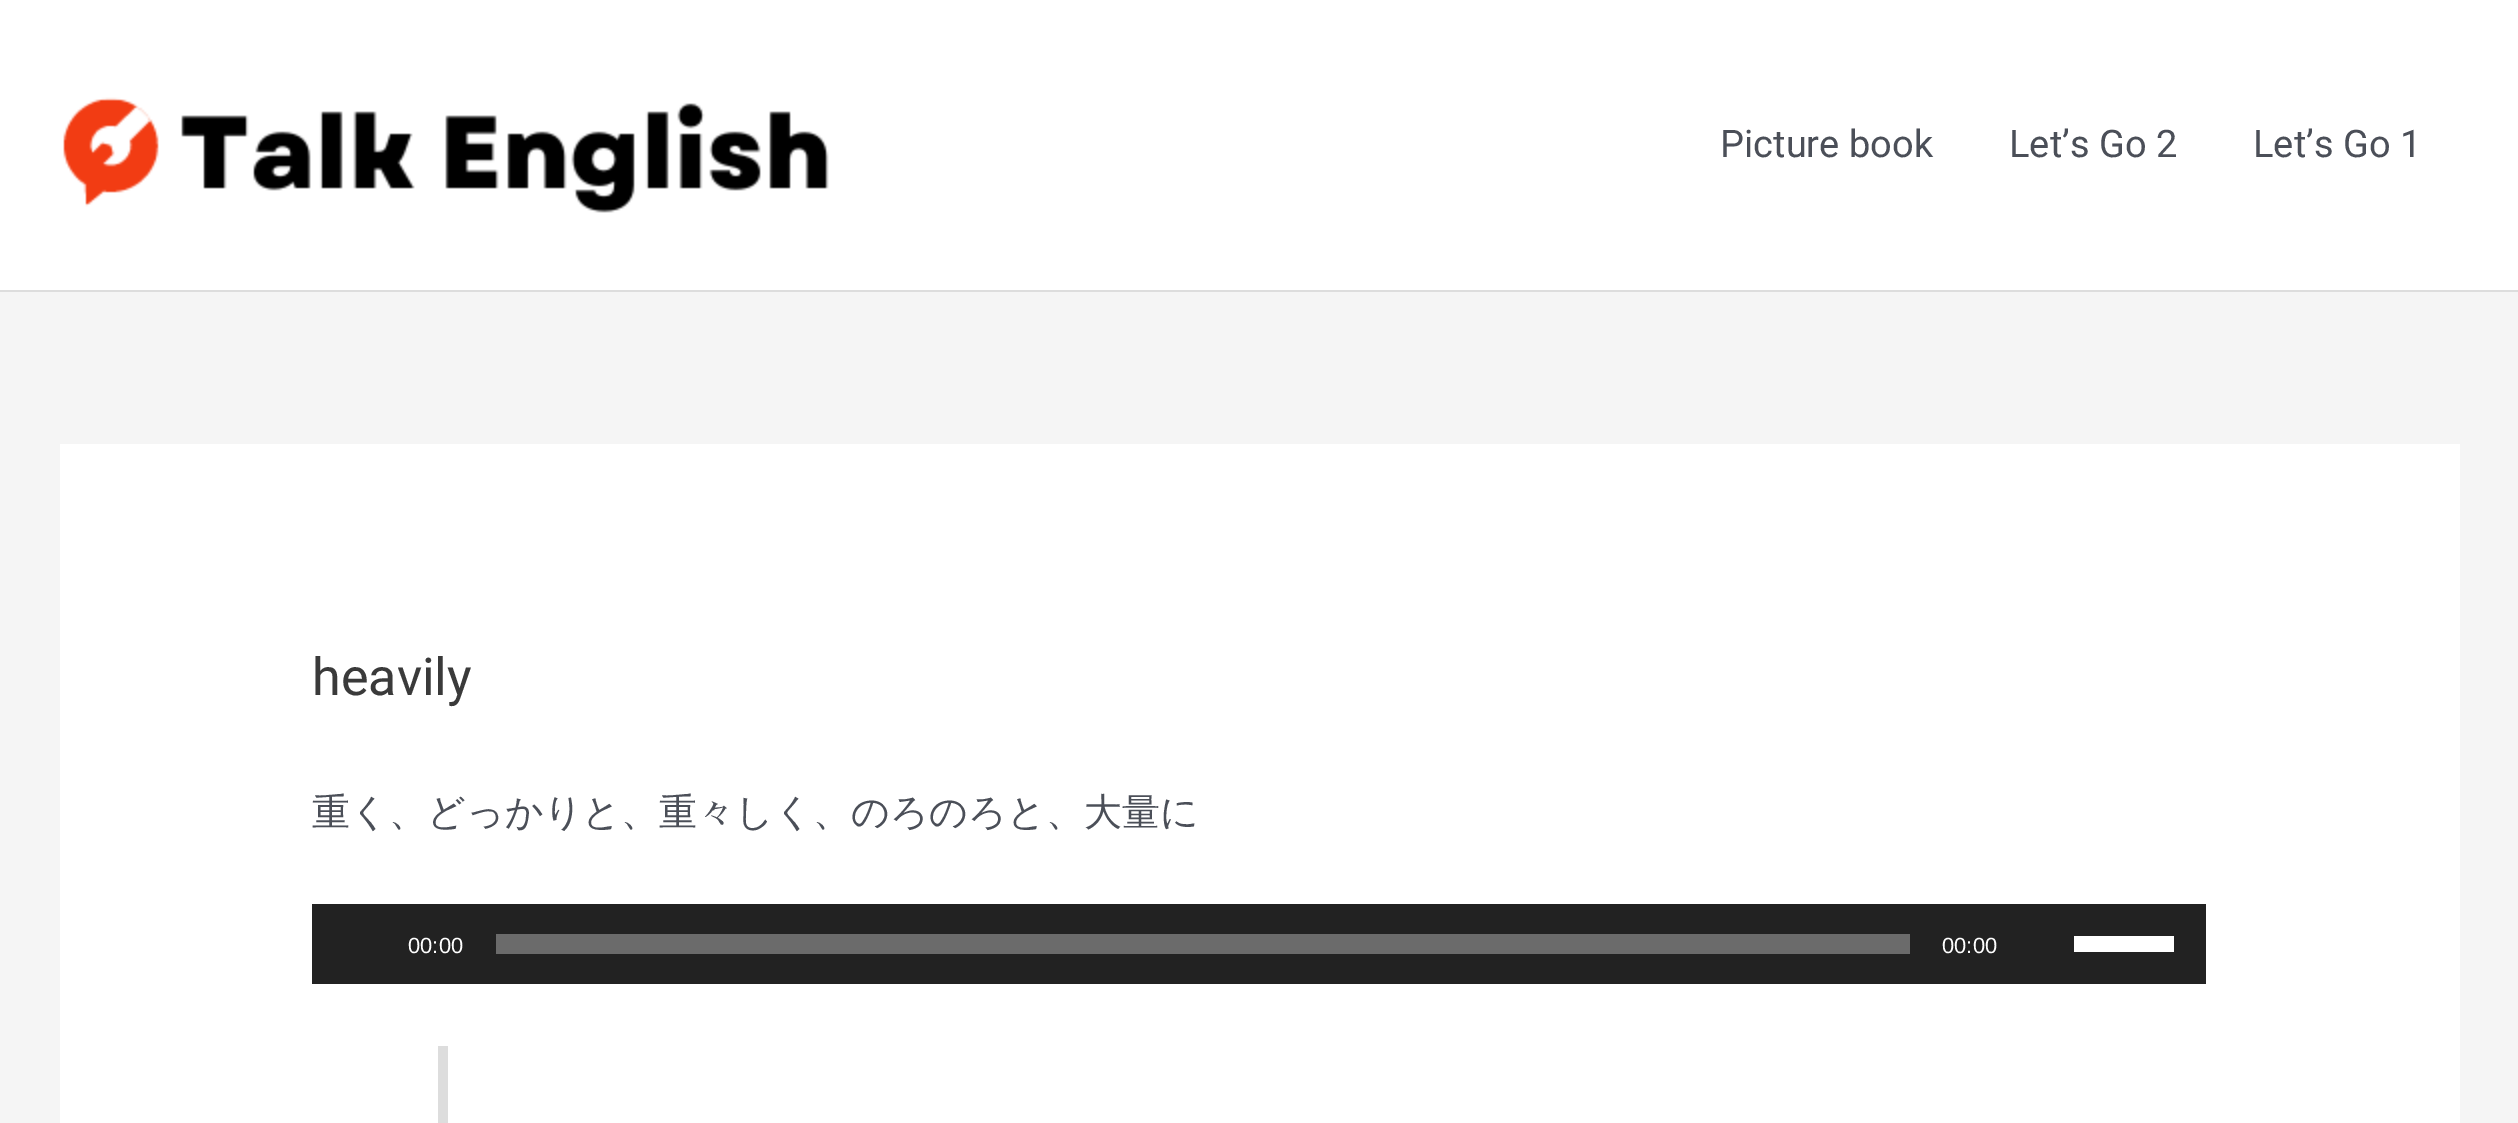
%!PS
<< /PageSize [2518 1123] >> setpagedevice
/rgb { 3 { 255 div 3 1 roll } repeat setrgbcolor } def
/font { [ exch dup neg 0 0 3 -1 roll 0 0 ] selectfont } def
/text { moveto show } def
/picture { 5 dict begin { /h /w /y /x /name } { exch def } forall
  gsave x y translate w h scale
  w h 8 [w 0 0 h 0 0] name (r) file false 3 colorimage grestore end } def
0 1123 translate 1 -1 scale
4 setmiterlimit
245 245 245 rgb
0 0 2518 1123 rectfill
255 255 255 rgb
0 0 2518 290 rectfill
221 221 221 rgb
0 290 2518 2 rectfill
(img_01.rgb) 63 97 766 116 picture
255 255 255 rgb
60 444 2400 679 rectfill
34 34 34 rgb
312 904 1894 80 rectfill
107 107 107 rgb
496 934 1414 20 rectfill
255 255 255 rgb
2074 936 100 16 rectfill
221 221 221 rgb
438 1046 10 77 rectfill
/Roboto-Regular 38 font
75 79 88 rgb
(Picture book) 1720 157 text
(Let’s Go 2) 2009 157 text
(Let’s Go 1) 2253 157 text
/Roboto-Regular 52 font
58 58 58 rgb
(heavily) 312 695 text
/WenQuanYiZenHei-Medium 38 font
75 79 88 rgb
(重く、どっかりと、重々しく、のろのろと、大量に) 312 825 text
/LiberationSans-Regular 22 font
255 255 255 rgb
(00:00) 408 953 text
(00:00) 1942 953 text
showpage
